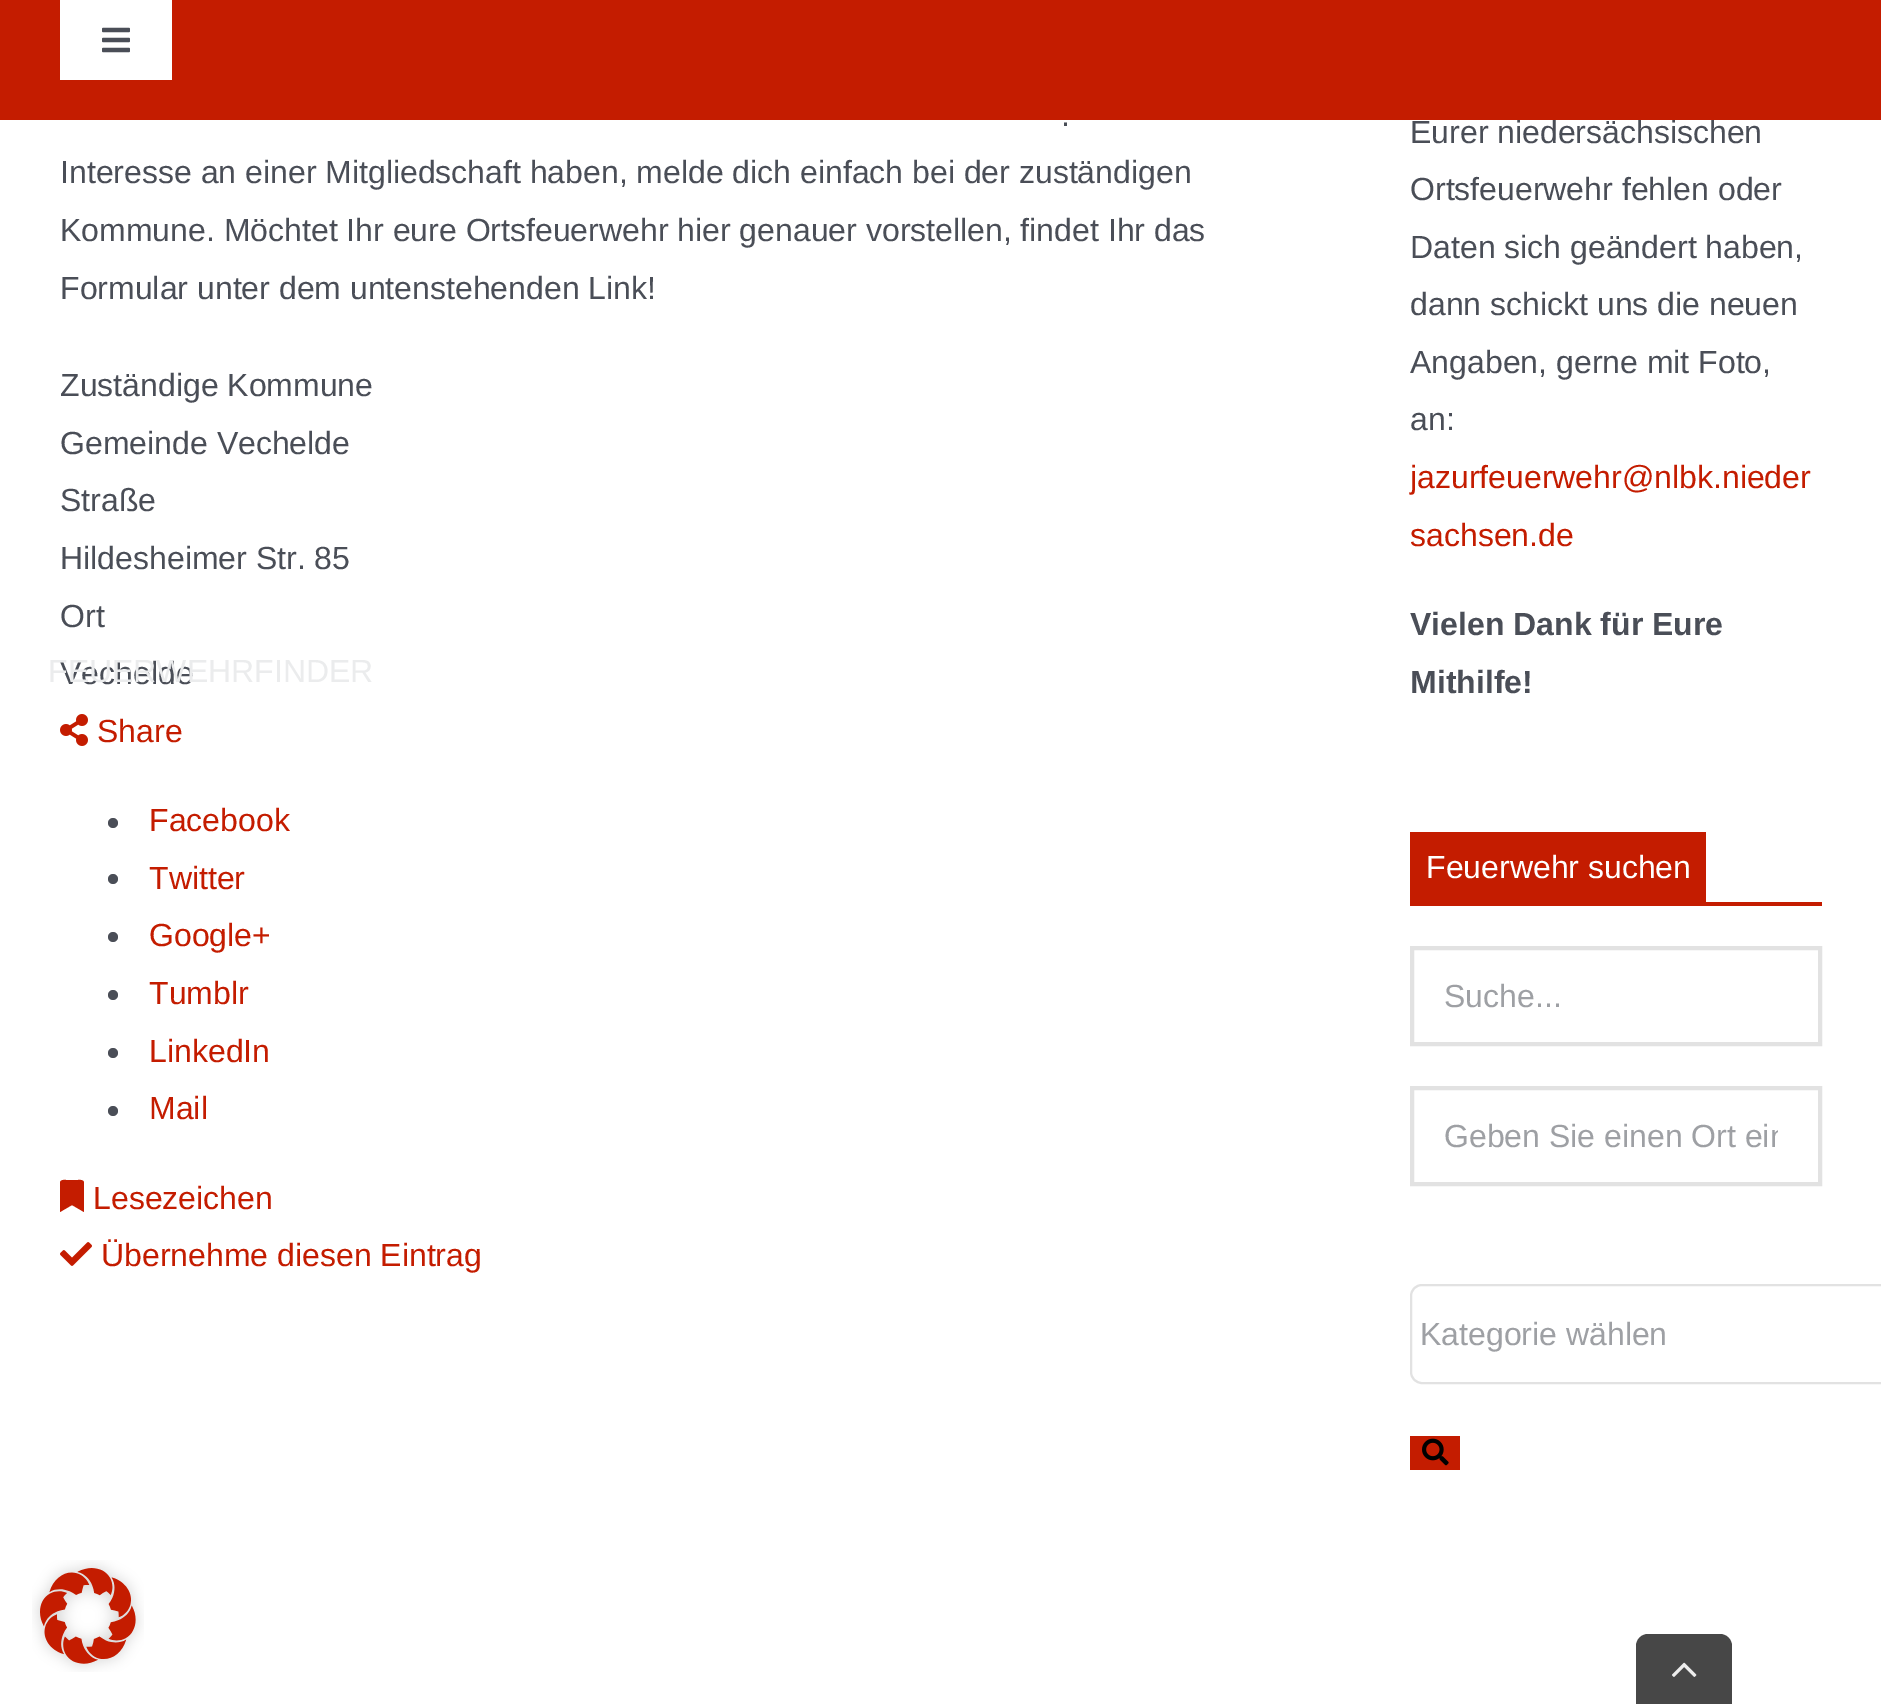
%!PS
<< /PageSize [1881 1704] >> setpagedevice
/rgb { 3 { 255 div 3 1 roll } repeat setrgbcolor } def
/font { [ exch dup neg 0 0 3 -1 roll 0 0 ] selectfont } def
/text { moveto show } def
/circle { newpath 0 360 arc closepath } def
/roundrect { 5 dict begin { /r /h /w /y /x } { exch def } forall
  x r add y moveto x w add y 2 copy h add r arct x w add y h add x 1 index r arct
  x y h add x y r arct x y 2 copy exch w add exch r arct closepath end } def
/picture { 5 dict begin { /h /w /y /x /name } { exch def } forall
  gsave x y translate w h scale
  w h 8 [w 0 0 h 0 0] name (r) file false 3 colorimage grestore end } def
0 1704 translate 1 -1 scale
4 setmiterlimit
255 255 255 rgb
0 0 1881 1704 rectfill
(img_01.rgb) 60 714 28 32 picture
74 78 87 rgb
113 823 5 circle fill
113 879 5 circle fill
113 937 5 circle fill
113 995 5 circle fill
113 1053 5 circle fill
113 1111 5 circle fill
196 28 0 rgb
60 1212 moveto 0 -29.5 rlineto 0.5 -3 4 -2.5 6 -2.5 rcurveto 12 0 rlineto 2 0 5.5 -0.5 6 2.5 rcurveto 0 29.5 rlineto -12 -7 rlineto closepath fill
(img_02.rgb) 60 1242 32 24 picture
1410 832 296 70 rectfill
1410 902 412 4 rectfill
226 226 226 rgb
4 setlinewidth
1412 948 408 96 rectstroke
1412 1088 408 96 rectstroke
2 setlinewidth
1411 1285 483 98 11 roundrect stroke
196 28 0 rgb
1410 1436 50 34 rectfill
(img_03.rgb) 1422 1438 27 28 picture
(img_05.rgb) 32 1560 112 112 picture
71 71 71 rgb
1648 1634 moveto 72 0 rlineto 6.5 0 12 5.5 12 12 rcurveto 0 58 rlineto -96 0 rlineto 0 -58 rlineto 0 -6.5 5.5 -12 12 -12 rcurveto closepath fill
(img_06.rgb) 1672 1662 25 15 picture
/LiberationSans-Regular 32 font
74 78 87 rgb
(.) 1061 126 text
(Interesse an einer Mitgliedschaft haben, melde dich einfach bei der zuständigen) 60 183 text
(Kommune. Möchtet Ihr eure Ortsfeuerwehr hier genauer vorstellen, findet Ihr das) 60 241 text
(Formular unter dem untenstehenden Link!) 60 299 text
(Zuständige Kommune) 60 396 text
(Gemeinde Vechelde) 60 454 text
(Straße) 60 511 text
(Hildesheimer Str. 85) 60 569 text
(Ort) 60 627 text
(Vechelde) 60 684 text
196 28 0 rgb
(Share) 97 742 text
(Facebook) 149 831 text
(Twitter) 149 889 text
(Google+) 149 946 text
(Tumblr) 149 1004 text
(LinkedIn) 149 1062 text
(Mail) 149 1119 text
(Lesezeichen) 93 1209 text
(Übernehme diesen Eintrag) 101 1266 text
74 78 87 rgb
(Eurer niedersächsischen) 1410 143 text
(Ortsfeuerwehr fehlen oder) 1410 200 text
(Daten sich geändert haben,) 1410 258 text
(dann schickt uns die neuen) 1410 315 text
(Angaben, gerne mit Foto,) 1410 373 text
(an:) 1410 430 text
196 28 0 rgb
(jazurfeuerwehr@nlbk.nieder) 1410 488 text
(sachsen.de) 1410 546 text
/LiberationSans-Bold 32 font
74 78 87 rgb
(Vielen Dank für Eure) 1410 635 text
(Mithilfe!) 1410 693 text
/LiberationSans-Regular 32 font
255 255 255 rgb
(Feuerwehr suchen) 1426 878 text
158 160 164 rgb
(Suche...) 1444 1007 text
gsave
1444 1118 334 36 rectclip
(Geben Sie einen Ort ein) 1444 1147 text
grestore
(Kategorie wählen) 1420 1345 text
196 28 0 rgb
0 0 1881 120 rectfill
255 255 255 rgb
60 0 112 80 rectfill
(img_04.rgb) 102 27 28 26 picture
235 236 237 rgb
(FEUERWEHRFINDER) 48 682 text
showpage
